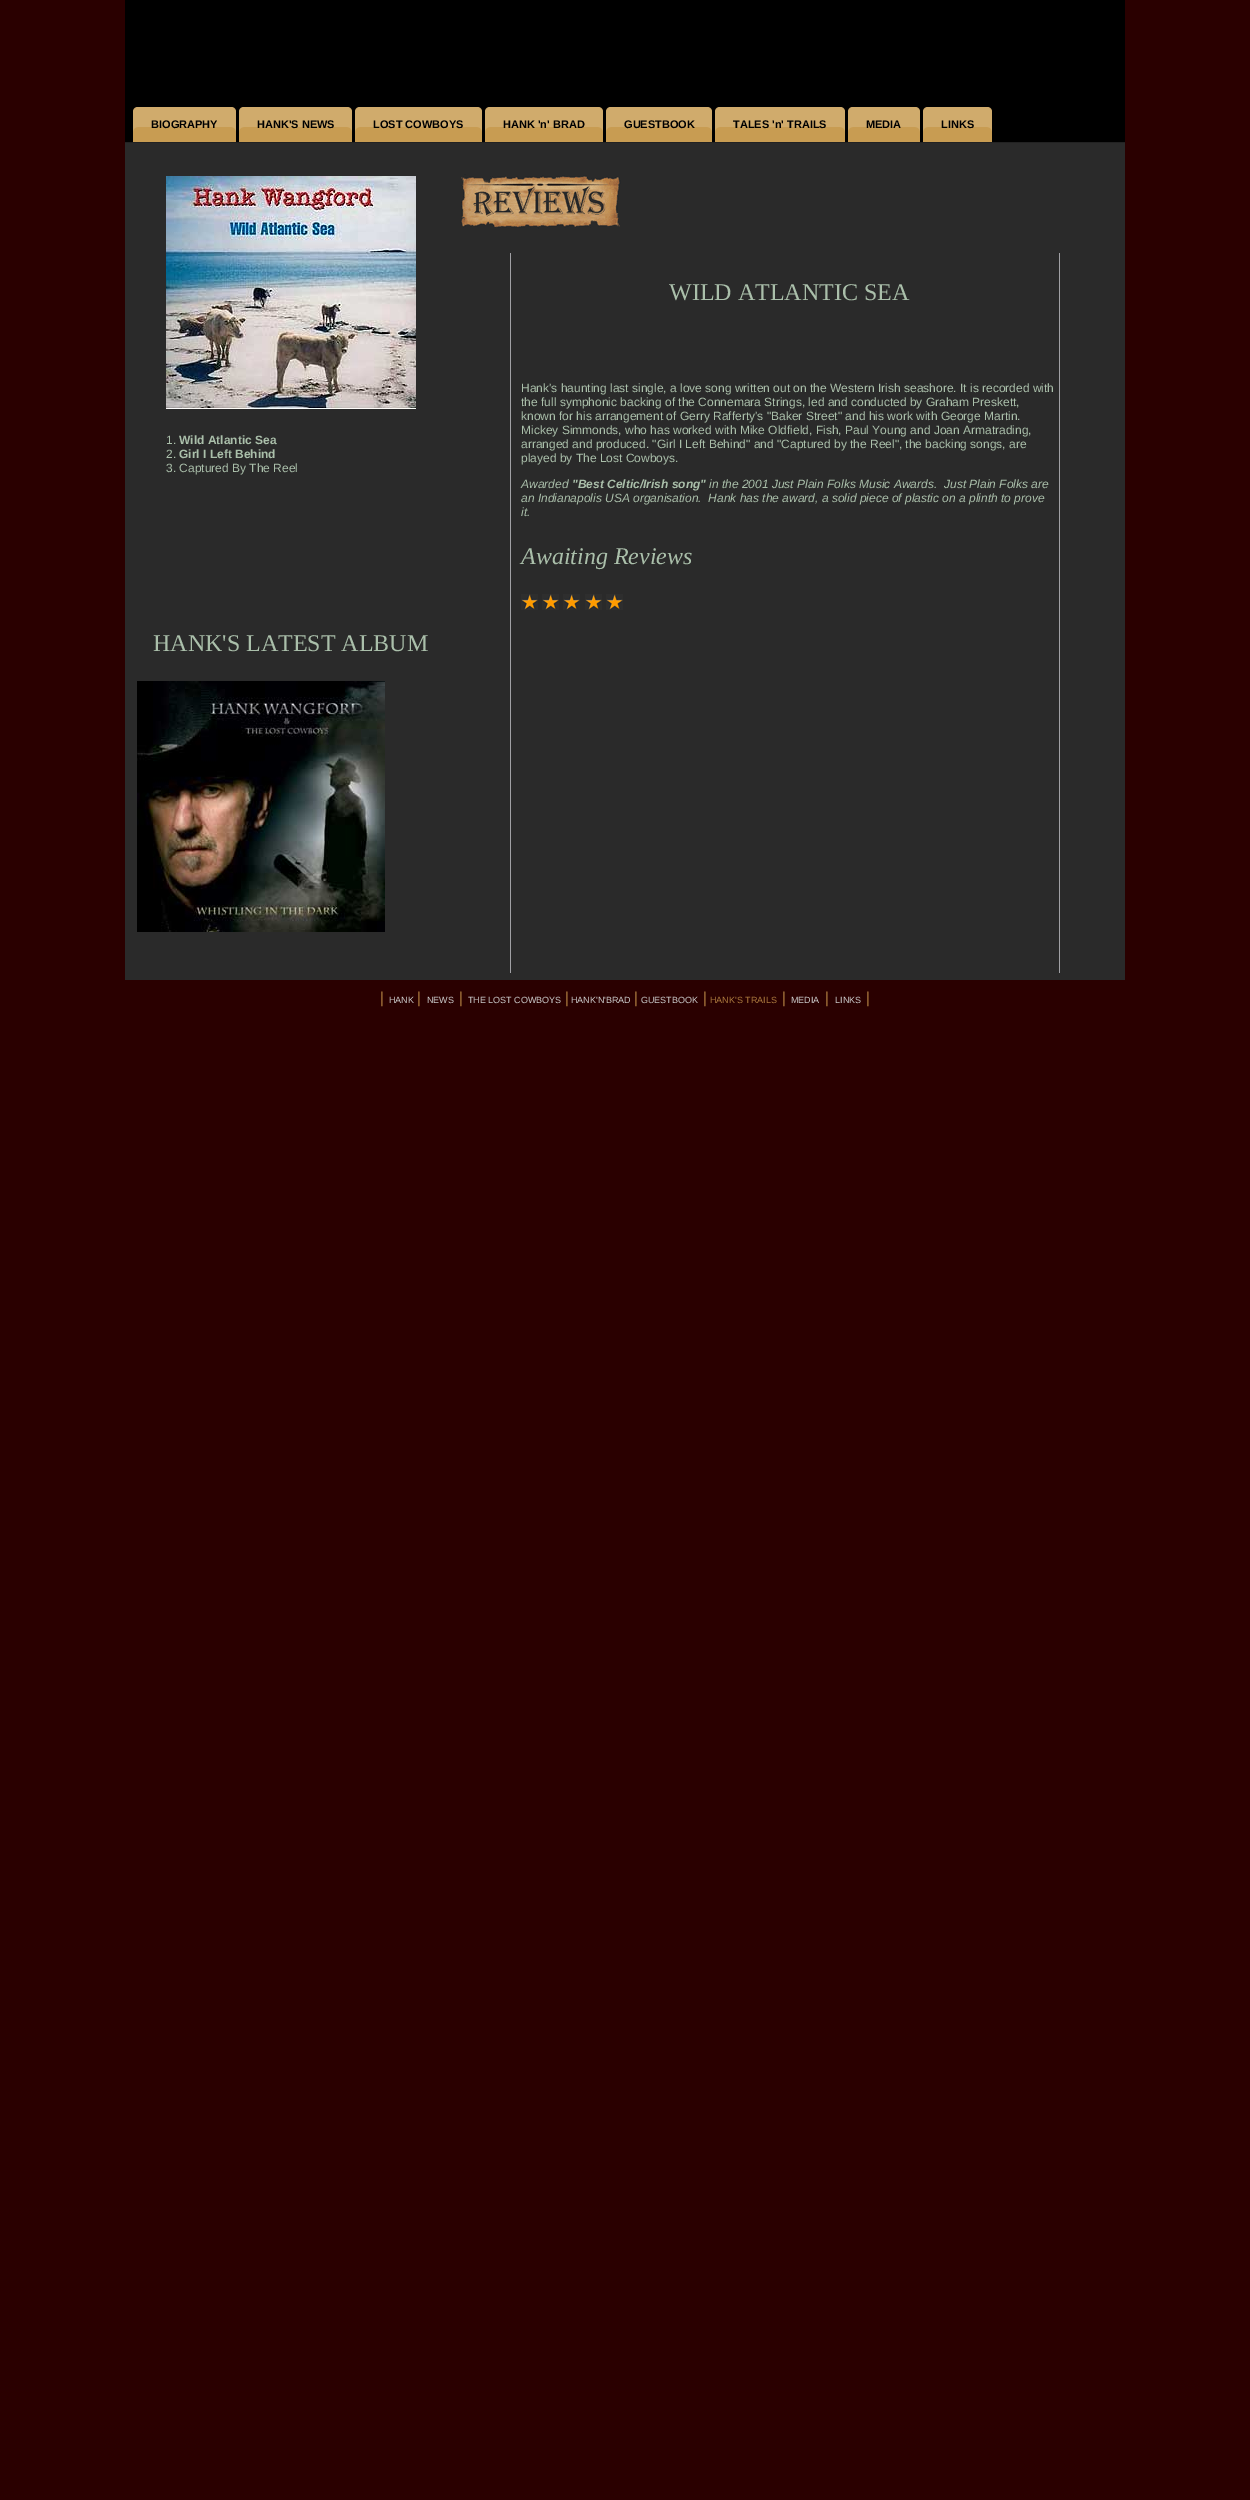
%!PS
<< /PageSize [1250 2500] /PageUsesTransparency true >> setpagedevice
/rgb { 3 { 255 div 3 1 roll } repeat setrgbcolor } def
/font { [ exch dup neg 0 0 3 -1 roll 0 0 ] selectfont } def
/text { moveto show } def
/alpha { dup .setfillconstantalpha .setstrokeconstantalpha } def
/picture { 5 dict begin { /h /w /y /x /name } { exch def } forall
  gsave x y translate w h scale
  w h 8 [w 0 0 h 0 0] name (r) file false 3 colorimage grestore end } def
0 .pushpdf14devicefilter
0 2500 translate 1 -1 scale
4 setmiterlimit
42 0 0 rgb
0 0 1250 2500 rectfill
0 0 0 rgb
125 0 1000 142 rectfill
34 34 34 rgb
125 142 1000 1 rectfill
200 156 82 rgb
138 107 moveto 93 0 rlineto 3 0 5 2 5 5 rcurveto 0 30 rlineto -103 0 rlineto 0 -30 rlineto 0 -3 2 -5 5 -5 rcurveto closepath fill
0.15 alpha
255 255 255 rgb
138 127 moveto 93 0 rlineto 3 0 5 2 5 5 rcurveto 0 -20 rlineto 0 -3 -2 -5 -5 -5 rcurveto -93 0 rlineto -3 0 -5 2 -5 5 rcurveto 0 20 rlineto 0 -3 2 -5 5 -5 rcurveto closepath fill
1 alpha
200 156 82 rgb
244 107 moveto 103 0 rlineto 3 0 5 2 5 5 rcurveto 0 30 rlineto -113 0 rlineto 0 -30 rlineto 0 -3 2 -5 5 -5 rcurveto closepath fill
0.15 alpha
255 255 255 rgb
244 127 moveto 103 0 rlineto 3 0 5 2 5 5 rcurveto 0 -20 rlineto 0 -3 -2 -5 -5 -5 rcurveto -103 0 rlineto -3 0 -5 2 -5 5 rcurveto 0 20 rlineto 0 -3 2 -5 5 -5 rcurveto closepath fill
1 alpha
200 156 82 rgb
360 107 moveto 117 0 rlineto 3 0 5 2 5 5 rcurveto 0 30 rlineto -127 0 rlineto 0 -30 rlineto 0 -3 2 -5 5 -5 rcurveto closepath fill
0.15 alpha
255 255 255 rgb
360 127 moveto 117 0 rlineto 3 0 5 2 5 5 rcurveto 0 -20 rlineto 0 -3 -2 -5 -5 -5 rcurveto -117 0 rlineto -3 0 -5 2 -5 5 rcurveto 0 20 rlineto 0 -3 2 -5 5 -5 rcurveto closepath fill
1 alpha
200 156 82 rgb
490 107 moveto 108 0 rlineto 3 0 5 2 5 5 rcurveto 0 30 rlineto -118 0 rlineto 0 -30 rlineto 0 -3 2 -5 5 -5 rcurveto closepath fill
0.15 alpha
255 255 255 rgb
490 127 moveto 108 0 rlineto 3 0 5 2 5 5 rcurveto 0 -20 rlineto 0 -3 -2 -5 -5 -5 rcurveto -108 0 rlineto -3 0 -5 2 -5 5 rcurveto 0 20 rlineto 0 -3 2 -5 5 -5 rcurveto closepath fill
1 alpha
200 156 82 rgb
611 107 moveto 96 0 rlineto 3 0 5 2 5 5 rcurveto 0 30 rlineto -106 0 rlineto 0 -30 rlineto 0 -3 2 -5 5 -5 rcurveto closepath fill
0.15 alpha
255 255 255 rgb
611 127 moveto 96 0 rlineto 3 0 5 2 5 5 rcurveto 0 -20 rlineto 0 -3 -2 -5 -5 -5 rcurveto -96 0 rlineto -3 0 -5 2 -5 5 rcurveto 0 20 rlineto 0 -3 2 -5 5 -5 rcurveto closepath fill
1 alpha
200 156 82 rgb
720 107 moveto 120 0 rlineto 3 0 5 2 5 5 rcurveto 0 30 rlineto -130 0 rlineto 0 -30 rlineto 0 -3 2 -5 5 -5 rcurveto closepath fill
0.15 alpha
255 255 255 rgb
720 127 moveto 120 0 rlineto 3 0 5 2 5 5 rcurveto 0 -20 rlineto 0 -3 -2 -5 -5 -5 rcurveto -120 0 rlineto -3 0 -5 2 -5 5 rcurveto 0 20 rlineto 0 -3 2 -5 5 -5 rcurveto closepath fill
1 alpha
200 156 82 rgb
853 107 moveto 62 0 rlineto 3 0 5 2 5 5 rcurveto 0 30 rlineto -72 0 rlineto 0 -30 rlineto 0 -3 2 -5 5 -5 rcurveto closepath fill
0.15 alpha
255 255 255 rgb
853 127 moveto 62 0 rlineto 3 0 5 2 5 5 rcurveto 0 -20 rlineto 0 -3 -2 -5 -5 -5 rcurveto -62 0 rlineto -3 0 -5 2 -5 5 rcurveto 0 20 rlineto 0 -3 2 -5 5 -5 rcurveto closepath fill
1 alpha
200 156 82 rgb
928 107 moveto 59 0 rlineto 3 0 5 2 5 5 rcurveto 0 30 rlineto -69 0 rlineto 0 -30 rlineto 0 -3 2 -5 5 -5 rcurveto closepath fill
0.15 alpha
255 255 255 rgb
928 127 moveto 59 0 rlineto 3 0 5 2 5 5 rcurveto 0 -20 rlineto 0 -3 -2 -5 -5 -5 rcurveto -59 0 rlineto -3 0 -5 2 -5 5 rcurveto 0 20 rlineto 0 -3 2 -5 5 -5 rcurveto closepath fill
1 alpha
42 42 42 rgb
125 143 1000 837 rectfill
(img_01.rgb) 166 176 250 233 picture
(img_02.rgb) 137 681 248 251 picture
(img_03.rgb) 460 174 161 55 picture
160 160 164 rgb
510 253 550 720 rectfill
42 42 42 rgb
511 253 548 720 rectfill
(img_04.rgb) 521 594 17 16 picture
(img_04.rgb) 542 594 17 16 picture
(img_04.rgb) 563 594 17 16 picture
(img_04.rgb) 585 594 17 16 picture
(img_04.rgb) 606 594 17 16 picture
/LiberationSans-Bold 11 font
0 0 0 rgb
(BIOGRAPHY) 151 128 text
(HANK'S NEWS) 257 128 text
(LOST COWBOYS) 373 128 text
(HANK 'n' BRAD) 503 128 text
(GUESTBOOK) 624 128 text
(TALES 'n' TRAILS) 733 128 text
(MEDIA) 866 128 text
(LINKS) 941 128 text
/LiberationSans-Regular 12 font
170 191 170 rgb
(1.) 166 444 text
/LiberationSans-Bold 12 font
(Wild Atlantic Sea) 179 444 text
/LiberationSans-Regular 12 font
(2.) 166 458 text
/LiberationSans-Bold 12 font
(Girl I Left Behind) 179 458 text
/LiberationSans-Regular 12 font
(3. Captured By The Reel) 166 472 text
/LiberationSerif-Regular 24 font
(HANK'S LATEST ALBUM) 153 651 text
(WILD ATLANTIC SEA) 669 300 text
/LiberationSans-Regular 12 font
(Hank's haunting last single, a love song written out on the Western Irish seashore. It is recorded with) 521 392 text
(the full symphonic backing of the Connemara Strings, led and conducted by Graham Preskett,) 521 406 text
(known for his arrangement of Gerry Rafferty's "Baker Street" and his work with George Martin.) 521 420 text
(Mickey Simmonds, who has worked with Mike Oldfield, Fish, Paul Young and Joan Armatrading,) 521 434 text
(arranged and produced. "Girl I Left Behind" and "Captured by the Reel", the backing songs, are) 521 448 text
(played by The Lost Cowboys.) 521 462 text
/LiberationSans-Italic 12 font
(Awarded) 521 488 text
/LiberationSans-BoldItalic 12 font
("Best Celtic/Irish song") 572 488 text
/LiberationSans-Italic 12 font
(in the 2001 Just Plain Folks Music Awards.) 709 488 text
(Just Plain Folks are) 944 488 text
(an Indianapolis USA organisation.  Hank has the award, a solid piece of plastic on a plinth to prove) 521 502 text
(it.) 521 516 text
/LiberationSerif-Italic 24 font
(Awaiting Reviews) 521 564 text
/LiberationMono-Regular 16 font
171 121 61 rgb
(|) 377 1003 text
/LiberationSans-Regular 9 font
204 204 204 rgb
(HANK) 389 1003 text
/LiberationMono-Regular 16 font
171 121 61 rgb
(|) 414 1003 text
/LiberationSans-Regular 9 font
204 204 204 rgb
(NEWS) 427 1003 text
/LiberationMono-Regular 16 font
171 121 61 rgb
(|) 456 1003 text
/LiberationSans-Regular 9 font
204 204 204 rgb
(THE LOST COWBOYS) 468 1003 text
/LiberationMono-Regular 16 font
171 121 61 rgb
(|) 562 1003 text
/LiberationSans-Regular 9 font
204 204 204 rgb
(HANK'N'BRAD) 571 1003 text
/LiberationMono-Regular 16 font
171 121 61 rgb
(|) 631 1003 text
/LiberationSans-Regular 9 font
204 204 204 rgb
(GUESTBOOK) 641 1003 text
/LiberationMono-Regular 16 font
171 121 61 rgb
(|) 700 1003 text
/LiberationSans-Regular 9 font
(HANK'S TRAILS) 710 1003 text
/LiberationMono-Regular 16 font
(|) 779 1003 text
/LiberationSans-Regular 9 font
204 204 204 rgb
(MEDIA) 791 1003 text
/LiberationMono-Regular 16 font
171 121 61 rgb
(|) 822 1003 text
/LiberationSans-Regular 9 font
204 204 204 rgb
(LINKS) 835 1003 text
/LiberationMono-Regular 16 font
171 121 61 rgb
(|) 863 1003 text
.poppdf14devicefilter showpage
